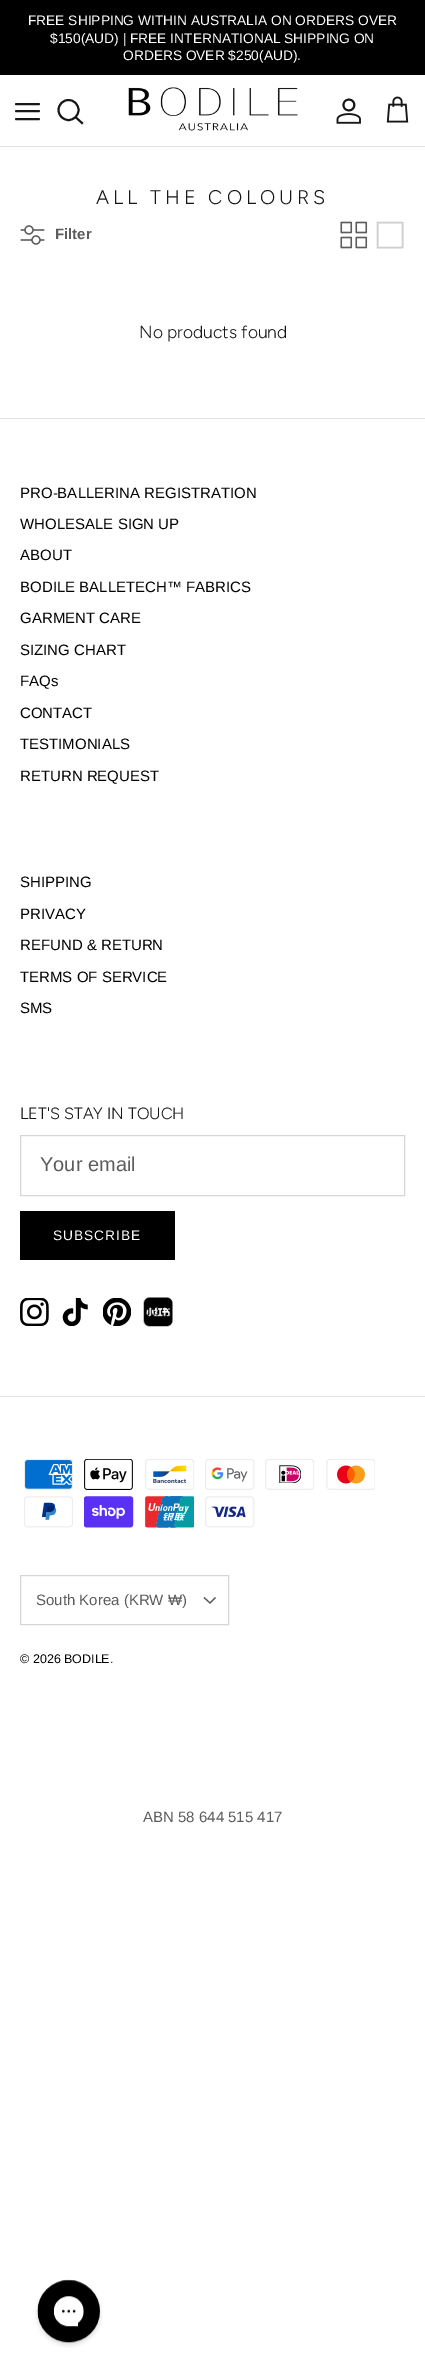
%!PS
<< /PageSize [425 2376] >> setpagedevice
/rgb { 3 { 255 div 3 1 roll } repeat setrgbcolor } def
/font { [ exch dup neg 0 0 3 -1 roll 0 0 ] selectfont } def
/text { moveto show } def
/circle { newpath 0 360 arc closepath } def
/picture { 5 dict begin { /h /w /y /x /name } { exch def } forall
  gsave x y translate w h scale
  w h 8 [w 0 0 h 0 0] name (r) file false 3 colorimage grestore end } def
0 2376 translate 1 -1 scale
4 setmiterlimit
255 255 255 rgb
0 0 425 2376 rectfill
0 0 0 rgb
0 0 425 75 rectfill
223 227 232 rgb
0 146 425 1 rectfill
23 23 23 rgb
1.9 setlinewidth
1 setlinecap
1 setlinejoin
16 111 moveto 23 0 rlineto 16 104 moveto 23 0 rlineto 16 119 moveto 23 0 rlineto stroke
0 setlinecap
0 setlinejoin
68.5 110 10 circle stroke
2 setlinecap
76 117.5 moveto 6 5.5 rlineto stroke
(img_01.rgb) 128 87 170 44 picture
(img_02.rgb) 336 98 25 26 picture
(img_03.rgb) 386 96 23 27 picture
(img_04.rgb) 20 225 25 20 picture
(img_05.rgb) 340 221 28 28 picture
206 206 206 rgb
1.6 setlinewidth
1 setlinecap
1 setlinejoin
377.5 222.5 moveto 25 0 rlineto 0 25 rlineto -25 0 rlineto 0 -25 rlineto stroke
223 227 232 rgb
0 418 425 1 rectfill
214 214 214 rgb
1 setlinewidth
0 setlinecap
0 setlinejoin
20.5 1135.5 384 60 rectstroke
0 0 0 rgb
20 1211 155 49 rectfill
(img_06.rgb) 20 1298 29 28 picture
(img_07.rgb) 62 1298 26 28 picture
(img_08.rgb) 103 1298 28 28 picture
(img_09.rgb) 143 1297 30 30 picture
223 227 232 rgb
0 1396 425 1 rectfill
(img_10.rgb) 24 1459 49 31 picture
(img_11.rgb) 84 1459 49 31 picture
(img_12.rgb) 145 1459 49 31 picture
(img_13.rgb) 205 1459 50 31 picture
(img_14.rgb) 265 1459 49 31 picture
(img_15.rgb) 326 1459 49 31 picture
(img_16.rgb) 24 1496 49 32 picture
(img_17.rgb) 84 1496 50 32 picture
(img_18.rgb) 145 1496 49 32 picture
(img_19.rgb) 205 1496 50 32 picture
214 214 214 rgb
20.5 1575.5 208 49 rectstroke
92 92 92 rgb
1.2 setlinewidth
215.5 1597.5 moveto -5.5 5.5 rlineto -6 -5.5 rlineto stroke
(img_20.rgb) 35 2279 67 69 picture
/LiberationSans-Regular 13.75 font
255 255 255 rgb
(FREE SHIPPING WITHIN AUSTRALIA ON ORDERS OVER) 28 25 text
($150\(AUD\) | FREE INTERNATIONAL SHIPPING ON) 50 43 text
(ORDERS OVER $250\(AUD\).) 123 60 text
/Figtree-Light 19.75 font
23 23 23 rgb
96 204 moveto 4 0 (ALL THE COLOURS) ashow
/LiberationSans-Bold 15 font
92 92 92 rgb
(Filter) 55 239 text
/Figtree-Light 17.5 font
23 23 23 rgb
(No products found) 139 338 text
/LiberationSans-Regular 15 font
0 0 0 rgb
(PRO-BALLERINA REGISTRATION) 20 498 text
(WHOLESALE SIGN UP) 20 529 text
(ABOUT) 20 560 text
(BODILE BALLETECH™ FABRICS) 20 592 text
(GARMENT CARE) 20 623 text
(SIZING CHART) 20 655 text
(FAQs) 20 686 text
(CONTACT) 20 718 text
(TESTIMONIALS) 20 749 text
(RETURN REQUEST) 20 781 text
(SHIPPING) 20 887 text
(PRIVACY) 20 919 text
(REFUND & RETURN) 20 950 text
(TERMS OF SERVICE) 20 982 text
(SMS) 20 1013 text
/Figtree-Light 16.25 font
23 23 23 rgb
(LET'S STAY IN TOUCH) 20 1119 text
/LiberationSans-Regular 20 font
92 92 92 rgb
(Your email) 40 1171 text
/LiberationSans-Regular 13.75 font
255 255 255 rgb
53 1240 moveto 1 0 (SUBSCRIBE) ashow
/LiberationSans-Regular 15 font
92 92 92 rgb
(South Korea \(KRW ₩\)) 36 1605 text
/LiberationSans-Regular 12.5 font
0 0 0 rgb
(© 2026 BODILE.) 20 1663 text
/LiberationSans-Regular 15 font
92 92 92 rgb
(ABN 58 644 515 417) 143 1822 text
showpage
